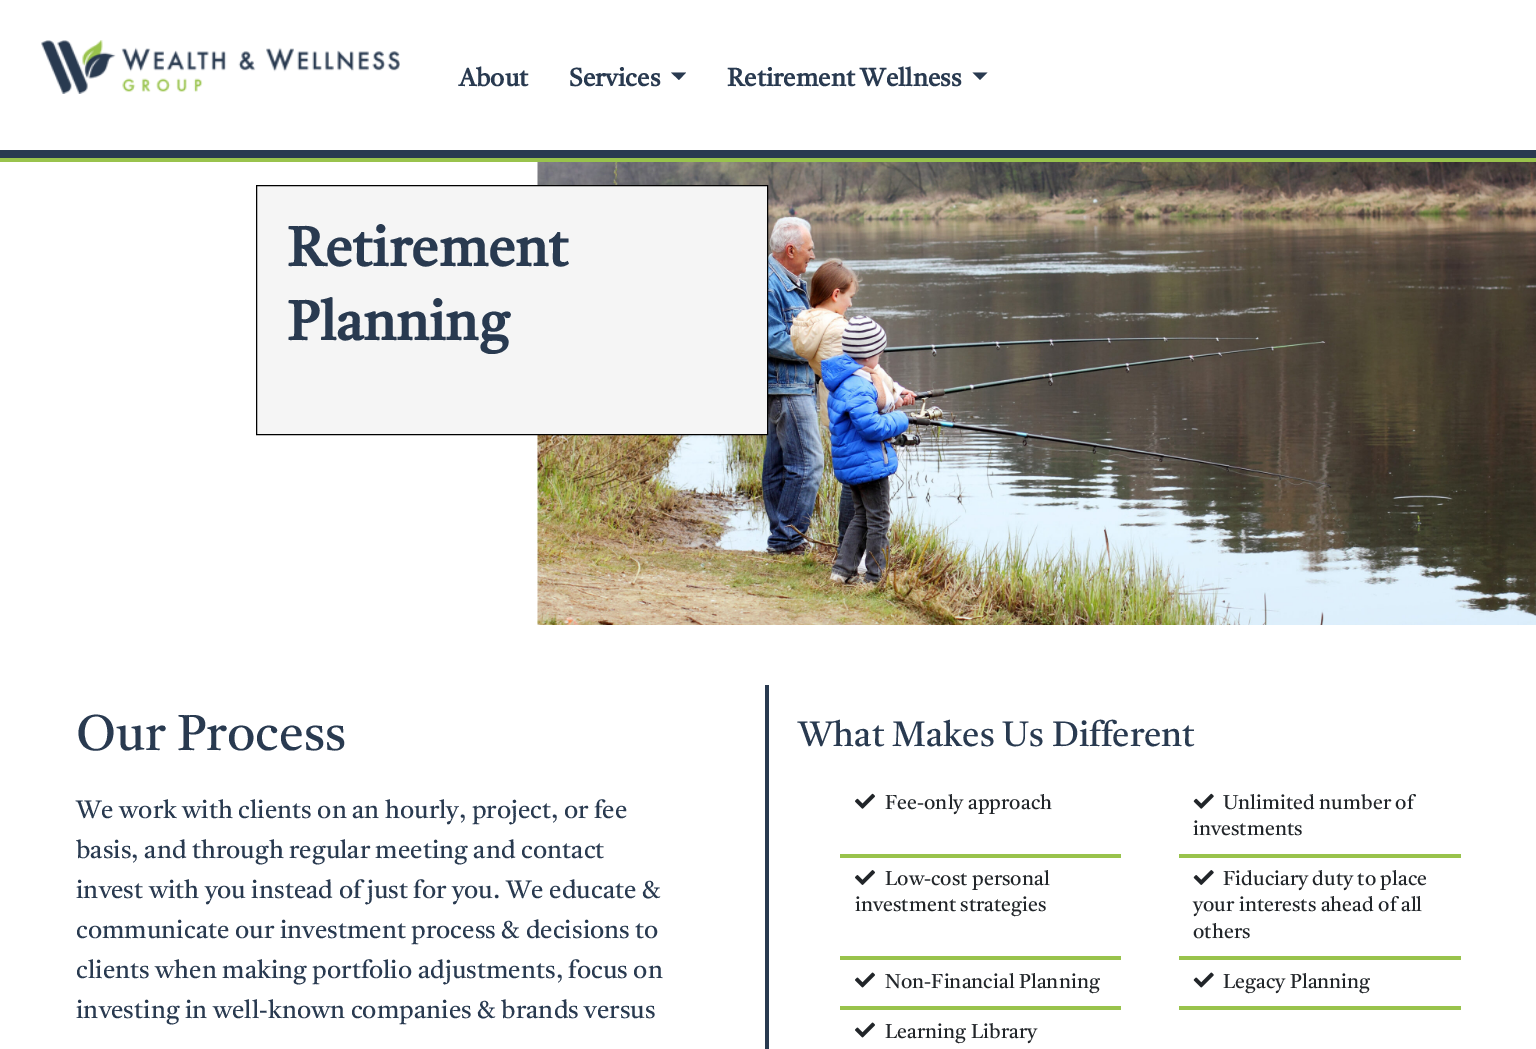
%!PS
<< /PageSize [1536 1049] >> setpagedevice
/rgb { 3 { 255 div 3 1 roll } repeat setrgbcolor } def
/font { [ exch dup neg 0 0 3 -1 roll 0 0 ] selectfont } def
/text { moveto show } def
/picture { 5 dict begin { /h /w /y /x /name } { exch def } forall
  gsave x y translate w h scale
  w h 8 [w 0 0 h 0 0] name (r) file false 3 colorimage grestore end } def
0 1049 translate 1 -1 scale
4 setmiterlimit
255 255 255 rgb
0 0 1536 1049 rectfill
153 195 76 rgb
0 158 1536 4 rectfill
41 58 80 rgb
0 150 1536 8 rectfill
(img_01.rgb) 41 40 359 54 picture
671 72.5 moveto 15 0 rlineto -7 7.5 rlineto closepath fill
972.5 72.5 moveto 15 0 rlineto -7.5 7.5 rlineto closepath fill
(img_02.rgb) 537 162 999 463 picture
245 245 245 rgb
256.5 185.5 moveto 511 0 rlineto 0 249 rlineto -511 0 rlineto closepath gsave fill grestore
0 0 0 rgb
stroke
41 58 80 rgb
765 685 4 364 rectfill
153 195 76 rgb
840 854 281 4 rectfill
(img_03.rgb) 855 793 20 16 picture
1179 854 282 4 rectfill
(img_04.rgb) 1193 793 21 16 picture
840 956 281 4 rectfill
(img_05.rgb) 855 870 20 15 picture
1179 956 282 4 rectfill
(img_06.rgb) 1193 870 21 15 picture
840 1006 281 4 rectfill
(img_07.rgb) 855 972 20 16 picture
1179 1006 282 4 rectfill
(img_08.rgb) 1193 972 21 16 picture
(img_07.rgb) 855 1022 20 16 picture
/Castoro-Bold 25 font
41 58 80 rgb
(About) 459 86 text
(Services) 569 86 text
(Retirement Wellness) 727 86 text
/Castoro-Bold 55 font
(Retirement) 287 266 text
(Planning) 287 340 text
/Castoro-Regular 50 font
(Our Process) 76 750 text
/Castoro-Regular 25 font
(We work with clients on an hourly, project, or fee) 76 818 text
(basis, and through regular meeting and contact) 76 858 text
(invest with you instead of just for you. We educate &) 76 898 text
(communicate our investment process & decisions to) 76 938 text
(clients when making portfolio adjustments, focus on) 76 978 text
(investing in well-known companies & brands versus) 76 1018 text
/Castoro-Regular 35 font
(What Makes Us Different) 798 746 text
/Castoro-Regular 20 font
33 37 41 rgb
(Fee-only approach) 885 809 text
(Unlimited number of) 1223 809 text
(investments) 1193 835 text
(Low-cost personal) 885 885 text
(investment strategies) 855 911 text
(Fiduciary duty to place) 1223 885 text
(your interests ahead of all) 1193 911 text
(others) 1193 938 text
(Non-Financial Planning) 885 988 text
(Legacy Planning) 1223 988 text
(Learning Library) 885 1038 text
showpage
